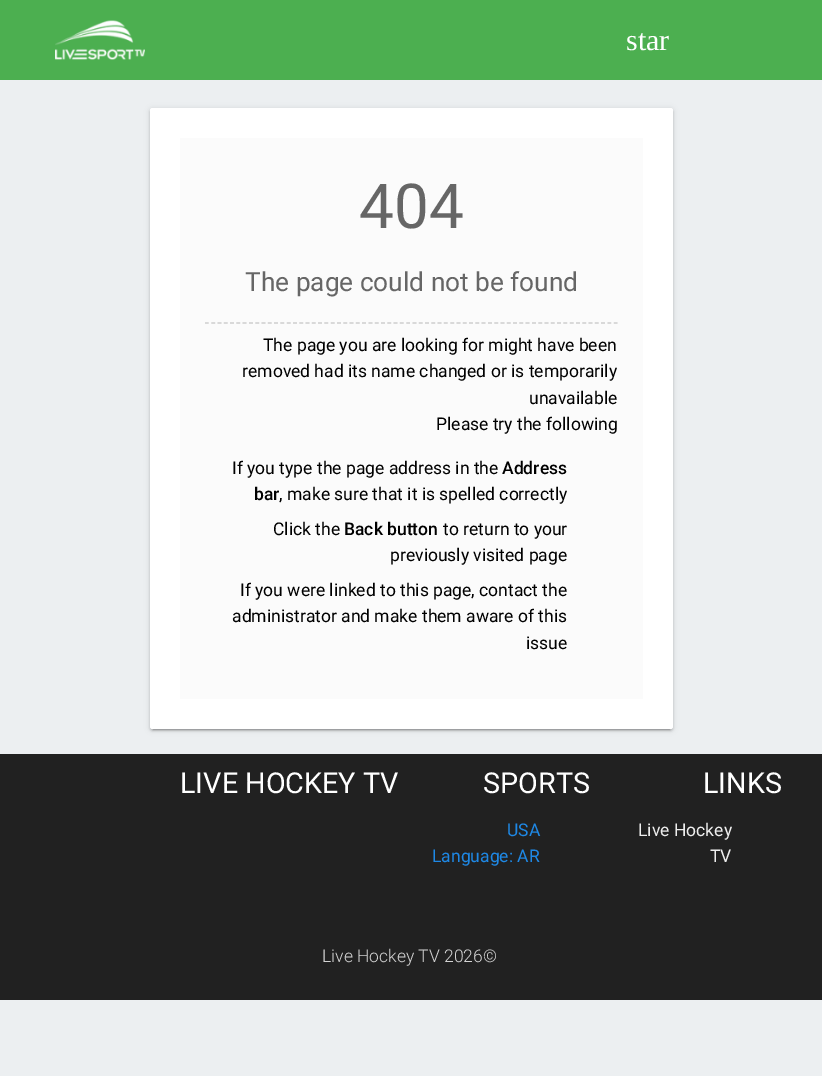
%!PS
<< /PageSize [822 1076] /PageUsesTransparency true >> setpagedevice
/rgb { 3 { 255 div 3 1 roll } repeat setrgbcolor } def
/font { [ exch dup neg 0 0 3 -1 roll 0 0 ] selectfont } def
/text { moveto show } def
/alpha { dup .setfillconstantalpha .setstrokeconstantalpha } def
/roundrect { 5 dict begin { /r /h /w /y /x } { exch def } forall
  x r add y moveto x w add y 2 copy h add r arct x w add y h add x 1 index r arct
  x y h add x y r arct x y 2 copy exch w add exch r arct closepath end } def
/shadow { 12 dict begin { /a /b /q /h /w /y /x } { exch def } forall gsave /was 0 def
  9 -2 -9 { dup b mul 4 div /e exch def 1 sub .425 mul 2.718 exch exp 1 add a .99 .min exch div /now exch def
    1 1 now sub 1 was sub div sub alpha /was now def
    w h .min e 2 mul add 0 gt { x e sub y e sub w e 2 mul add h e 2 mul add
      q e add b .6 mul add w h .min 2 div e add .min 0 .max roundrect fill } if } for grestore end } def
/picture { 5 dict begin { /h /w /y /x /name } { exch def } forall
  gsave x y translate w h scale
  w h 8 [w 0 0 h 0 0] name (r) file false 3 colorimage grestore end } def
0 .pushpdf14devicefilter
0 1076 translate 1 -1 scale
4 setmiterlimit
236 239 241 rgb
0 0 822 1076 rectfill
76 175 80 rgb
0 0 822 80 rectfill
(img_01.rgb) 55 20 90 40 picture
0 0 0 rgb
153 114 517 616 0 0.5 0.2 shadow
150 109 523 621 2.5 3 0.12 shadow
150 110 523 621 2.5 1 0.14 shadow
255 255 255 rgb
150 108 523 621 2.5 roundrect fill
251 251 251 rgb
180 138 463 561 rectfill
204 204 204 rgb
1.2 setlinewidth
[3.75 2.54] 0 setdash
205 323 moveto 412.5 0 rlineto stroke
33 33 33 rgb
0 754 822 246 rectfill
/LiberationSerif-Regular 30 font
255 255 255 rgb
(star) 626 50 text
/Roboto-Regular 62 font
102 102 102 rgb
(404) 359 228 text
/Roboto-Regular 26.25 font
(The page could not be found) 245 291 text
/Roboto-Regular 17.5 font
0 0 0 rgb
(The page you are looking for might have been) 263 351 text
(removed had its name changed or is temporarily) 242 377 text
(unavailable) 529 404 text
(Please try the following) 436 430 text
(If you type the page address in the) 232 474 text
/Roboto-Medium 17.5 font
(Address) 502 474 text
(bar) 254 500 text
/Roboto-Regular 17.5 font
(, make sure that it is spelled correctly) 279 500 text
(Click the) 273 535 text
/Roboto-Medium 17.5 font
(Back button) 344 535 text
/Roboto-Regular 17.5 font
(to return to your) 443 535 text
(previously visited page) 390 561 text
(If you were linked to this page, contact the) 240 596 text
(administrator and make them aware of this) 232 622 text
(issue) 526 649 text
/Roboto-Regular 28.75 font
255 255 255 rgb
(LIVE HOCKEY TV) 180 793 text
(SPORTS) 483 793 text
/Roboto-Regular 17.5 font
30 136 229 rgb
(USA) 507 836 text
(Language: AR) 432 862 text
/Roboto-Regular 28.75 font
255 255 255 rgb
(LINKS) 703 793 text
/Roboto-Regular 17.5 font
238 238 238 rgb
(Live Hockey) 638 836 text
(TV) 710 862 text
/Roboto-Light 17.5 font
211 211 211 rgb
(Live Hockey TV 2026©) 322 962 text
.poppdf14devicefilter showpage
